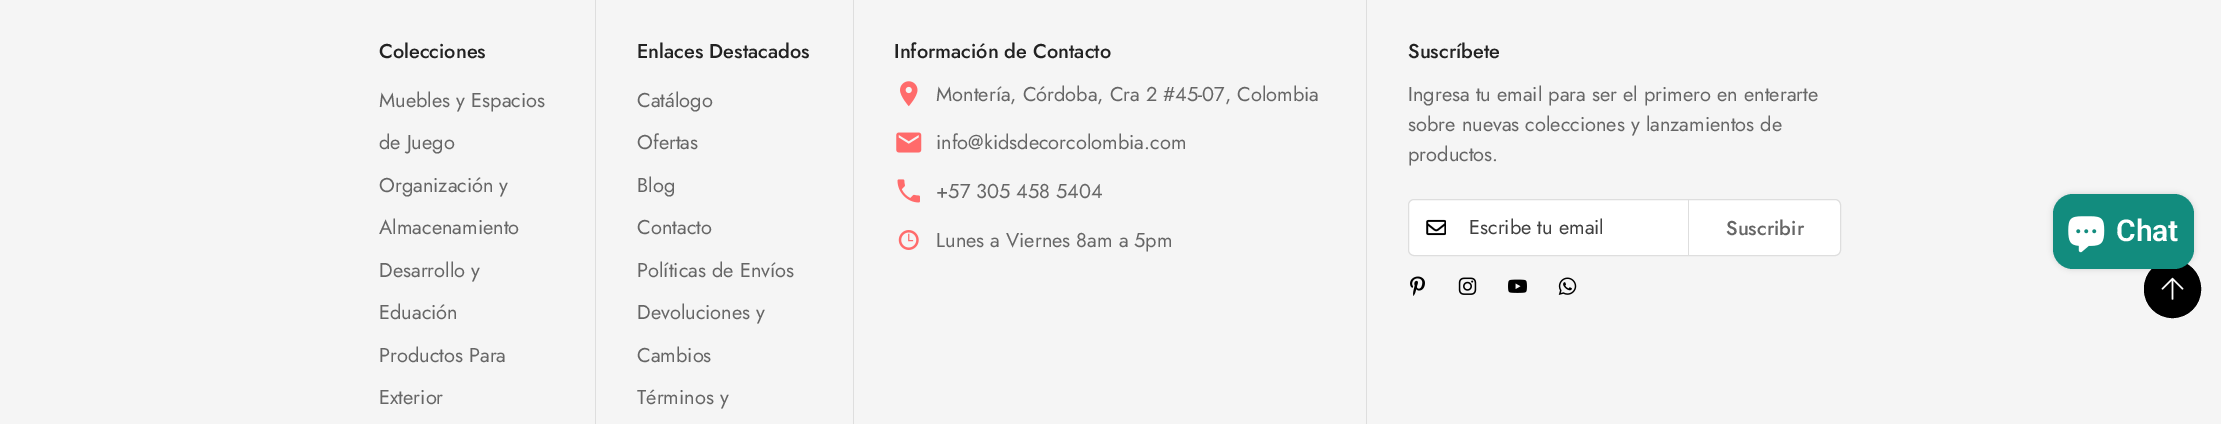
%!PS
<< /PageSize [2221 424] /PageUsesTransparency true >> setpagedevice
/rgb { 3 { 255 div 3 1 roll } repeat setrgbcolor } def
/font { [ exch dup neg 0 0 3 -1 roll 0 0 ] selectfont } def
/text { moveto show } def
/alpha { dup .setfillconstantalpha .setstrokeconstantalpha } def
/roundrect { 5 dict begin { /r /h /w /y /x } { exch def } forall
  x r add y moveto x w add y 2 copy h add r arct x w add y h add x 1 index r arct
  x y h add x y r arct x y 2 copy exch w add exch r arct closepath end } def
/shadow { 12 dict begin { /a /b /q /h /w /y /x } { exch def } forall gsave /was 0 def
  9 -2 -9 { dup b mul 4 div /e exch def 1 sub .425 mul 2.718 exch exp 1 add a .99 .min exch div /now exch def
    1 1 now sub 1 was sub div sub alpha /was now def
    w h .min e 2 mul add 0 gt { x e sub y e sub w e 2 mul add h e 2 mul add
      q e add b .6 mul add w h .min 2 div e add .min 0 .max roundrect fill } if } for grestore end } def
/picture { 5 dict begin { /h /w /y /x /name } { exch def } forall
  gsave x y translate w h scale
  w h 8 [w 0 0 h 0 0] name (r) file false 3 colorimage grestore end } def
0 .pushpdf14devicefilter
0 424 translate 1 -1 scale
4 setmiterlimit
245 245 245 rgb
0 0 2221 424 rectfill
222 222 222 rgb
595 0 1 424 rectfill
853 0 1 424 rectfill
1366 0 1 424 rectfill
(img_01.rgb) 900 81 18 26 picture
(img_02.rgb) 896 132 26 21 picture
(img_03.rgb) 897 179 23 24 picture
(img_04.rgb) 898 230 21 20 picture
255 255 255 rgb
1408.5 199.5 432 56 5.5 roundrect gsave fill grestore
222 222 222 rgb
stroke
(img_05.rgb) 1426 219 20 17 picture
1688 199 1 57 rectfill
(img_06.rgb) 1410 276 15 20 picture
(img_07.rgb) 1458 277 19 18 picture
(img_08.rgb) 1508 279 19 14 picture
(img_09.rgb) 1558 277 19 18 picture
0 0 0 rgb
2144.5 260.5 56 57 28 roundrect gsave fill grestore
stroke
(img_11.rgb) 2161 277 23 23 picture
2053 194 141 75 20 3 0.15 shadow
18 140 126 rgb
2053 194 141 75 20 roundrect fill
(img_10.rgb) 2068 216 37 37 picture
/Jost-Medium 20 font
34 34 34 rgb
(Colecciones) 379 58 text
/Jost-Regular 20 font
102 102 102 rgb
(Muebles y Espacios) 379 107 text
(de Juego) 379 149 text
(Organización y) 379 192 text
(Almacenamiento) 379 234 text
(Desarrollo y) 379 277 text
(Eduación) 379 319 text
(Productos Para) 379 362 text
(Exterior) 379 404 text
/Jost-Medium 20 font
34 34 34 rgb
(Enlaces Destacados) 637 58 text
/Jost-Regular 20 font
102 102 102 rgb
(Catálogo) 637 107 text
(Ofertas) 637 149 text
(Blog) 637 192 text
(Contacto) 637 234 text
(Políticas de Envíos) 637 277 text
(Devoluciones y) 637 319 text
(Cambios) 637 362 text
(Términos y) 637 404 text
/Jost-Medium 20 font
34 34 34 rgb
(Información de Contacto) 894 58 text
/Jost-Regular 20 font
102 102 102 rgb
(Montería, Córdoba, Cra 2 #45-07, Colombia) 936 101 text
(info@kidsdecorcolombia.com) 936 149 text
(+57 305 458 5404) 936 198 text
(Lunes a Viernes 8am a 5pm) 936 247 text
/Jost-Medium 20 font
34 34 34 rgb
(Suscríbete) 1408 58 text
/Jost-Regular 20 font
102 102 102 rgb
(Ingresa tu email para ser el primero en enterarte) 1408 101 text
(sobre nuevas colecciones y lanzamientos de) 1408 131 text
(productos.) 1408 161 text
64 64 64 rgb
(Escribe tu email) 1469 234 text
/Jost-Medium 20 font
102 102 102 rgb
(Suscribir) 1726 235 text
/Roboto-SemiBold 30 font
255 255 255 rgb
(Chat) 2116 241 text
.poppdf14devicefilter showpage
